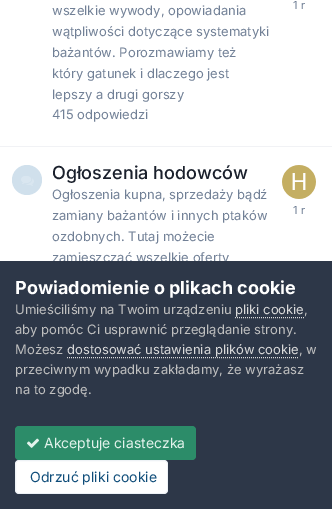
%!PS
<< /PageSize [332 509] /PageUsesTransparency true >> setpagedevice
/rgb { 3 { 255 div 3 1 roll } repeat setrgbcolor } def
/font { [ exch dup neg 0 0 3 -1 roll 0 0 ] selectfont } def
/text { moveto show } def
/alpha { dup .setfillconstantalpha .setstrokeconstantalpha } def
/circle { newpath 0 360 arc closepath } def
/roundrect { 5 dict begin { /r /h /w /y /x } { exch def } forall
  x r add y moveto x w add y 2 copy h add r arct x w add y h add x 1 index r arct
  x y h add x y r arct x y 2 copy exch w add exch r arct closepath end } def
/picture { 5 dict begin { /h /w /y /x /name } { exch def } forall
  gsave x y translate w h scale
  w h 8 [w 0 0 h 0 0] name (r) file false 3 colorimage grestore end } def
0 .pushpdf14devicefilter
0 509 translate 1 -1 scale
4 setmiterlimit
255 255 255 rgb
0 0 332 509 rectfill
241 242 245 rgb
0 146 332 1 rectfill
208 224 236 rgb
27 180 15 circle fill
(img_01.rgb) 21 176 13 10 picture
(img_02.rgb) 282 165 34 34 picture
/Inter-Regular 13 font
113 128 150 rgb
(wszelkie wywody, opowiadania) 52 15 text
(wątpliwości dotyczące systematyki) 52 36 text
(bażantów. Porozmawiamy też) 52 57 text
(który gatunek i dlaczego jest) 52 78 text
(lepszy a drugi gorszy) 52 99 text
/Inter-Regular 11 font
(1 r) 293 9 text
/Inter-Regular 13 font
(415 odpowiedzi) 52 119 text
/Inter-Medium 18 font
26 32 44 rgb
(Ogłoszenia hodowców) 52 179 text
/Inter-Regular 13 font
113 128 150 rgb
(Ogłoszenia kupna, sprzedaży bądź) 52 199 text
(zamiany bażantów i innych ptaków) 52 220 text
(ozdobnych. Tutaj możecie) 52 241 text
(zamieszczać wszelkie oferty) 52 262 text
/Inter-Regular 11 font
(1 r) 293 214 text
45 55 72 rgb
0 261 332 248 rectfill
/Inter-Bold 18 font
255 255 255 rgb
(Powiadomienie o plikach cookie) 15 294 text
/Inter-Regular 13 font
192 192 192 rgb
(Umieściliśmy na Twoim urządzeniu) 15 314 text
218 218 218 rgb
(pliki cookie) 235 314 text
[1 1] 0 setdash
235 317.5 moveto 69 0 rlineto stroke
192 192 192 rgb
(,) 304 314 text
(aby pomóc Ci usprawnić przeglądanie strony.) 15 334 text
(Możesz) 15 354 text
218 218 218 rgb
(dostosować ustawienia plików cookie) 67 354 text
67 357.5 moveto 232 0 rlineto stroke
192 192 192 rgb
(, w) 299 354 text
(przeciwnym wypadku zakładamy, że wyrażasz) 15 374 text
(na to zgodę.) 15 394 text
44 140 105 rgb
15 426 181 34 4 roundrect fill
(img_03.rgb) 27 438 12 10 picture
/Inter-Regular 14 font
227 243 236 rgb
(Akceptuje ciasteczka) 44 448 text
255 255 255 rgb
15 460 153 34 4 roundrect fill
0.07 alpha
14 76 121 rgb
[] 0 setdash
15.5 460.5 152 33 3.5 roundrect stroke
1 alpha
(Odrzuć pliki cookie) 30 482 text
.poppdf14devicefilter showpage
